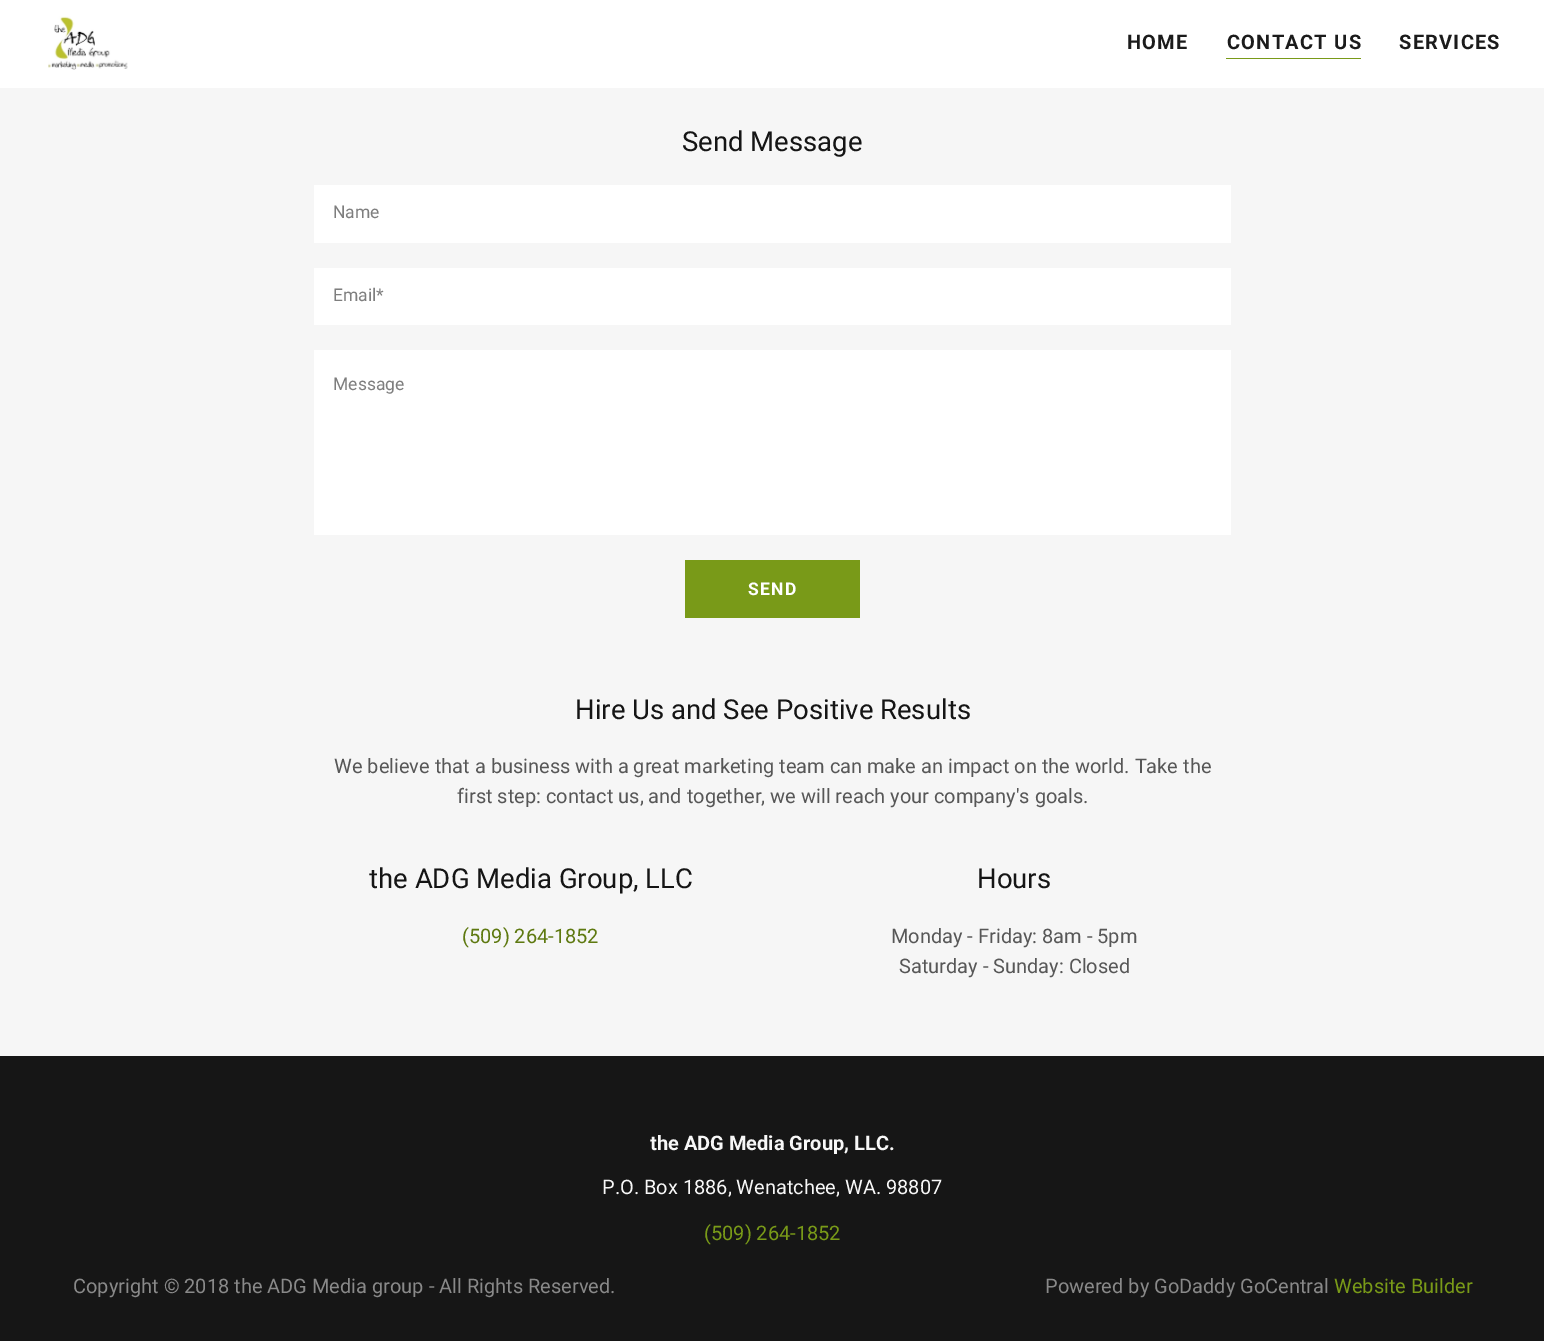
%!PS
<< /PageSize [1544 1341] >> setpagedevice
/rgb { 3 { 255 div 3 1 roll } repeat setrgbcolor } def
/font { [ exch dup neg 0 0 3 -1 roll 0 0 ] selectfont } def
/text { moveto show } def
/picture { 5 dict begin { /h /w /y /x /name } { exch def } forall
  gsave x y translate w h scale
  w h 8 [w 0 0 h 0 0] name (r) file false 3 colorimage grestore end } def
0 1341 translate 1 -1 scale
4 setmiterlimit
22 22 22 rgb
0 0 1544 1341 rectfill
255 255 255 rgb
0 0 1544 88 rectfill
(img_01.rgb) 48 16 80 54 picture
121 154 24 rgb
1226 58 135 1 rectfill
246 246 246 rgb
0 88 1544 968 rectfill
255 255 255 rgb
314 185 917 58 rectfill
314 268 917 57 rectfill
314 350 917 185 rectfill
121 154 24 rgb
685 560 175 58 rectfill
/Roboto-Bold 20 font
27 27 27 rgb
1127 49 moveto 1.25 0 (HOME) ashow
1227 49 moveto 1.25 0 (CONTACT US) ashow
1399 49 moveto 1.25 0 (SERVICES) ashow
/Roboto-Regular 27.5 font
21 21 21 rgb
(Send Message) 682 151 text
/Roboto-Regular 17.5 font
126 126 126 rgb
(Name) 333 218 text
(Email*) 333 301 text
(Message) 333 390 text
/Roboto-Bold 17.5 font
255 255 255 rgb
748 595 moveto 1.25 0 (SEND) ashow
/Roboto-Regular 27.5 font
21 21 21 rgb
(Hire Us and See Positive Results) 575 719 text
/Roboto-Regular 20 font
87 87 87 rgb
(We believe that a business with a great marketing team can make an impact on the world. Take the) 334 773 text
(first step: contact us, and together, we will reach your company's goals.) 457 803 text
/Roboto-Regular 27.5 font
21 21 21 rgb
(the ADG Media Group, LLC) 369 888 text
/Roboto-Regular 20 font
94 121 16 rgb
(\(509\) 264-1852) 462 943 text
/Roboto-Regular 27.5 font
21 21 21 rgb
(Hours) 977 888 text
/Roboto-Regular 20 font
87 87 87 rgb
(Monday - Friday: 8am - 5pm) 891 943 text
(Saturday - Sunday: Closed) 899 973 text
/Roboto-Bold 20 font
247 247 247 rgb
(the ADG Media Group, LLC.) 650 1150 text
/Roboto-Regular 20 font
(P.O. Box 1886, Wenatchee, WA. 98807) 602 1194 text
121 154 24 rgb
(\(509\) 264-1852) 704 1240 text
137 137 137 rgb
(Copyright © 2018 the ADG Media group - All Rights Reserved.) 73 1293 text
(Powered by GoDaddy GoCentral) 1045 1293 text
121 154 24 rgb
(Website Builder) 1334 1293 text
showpage
